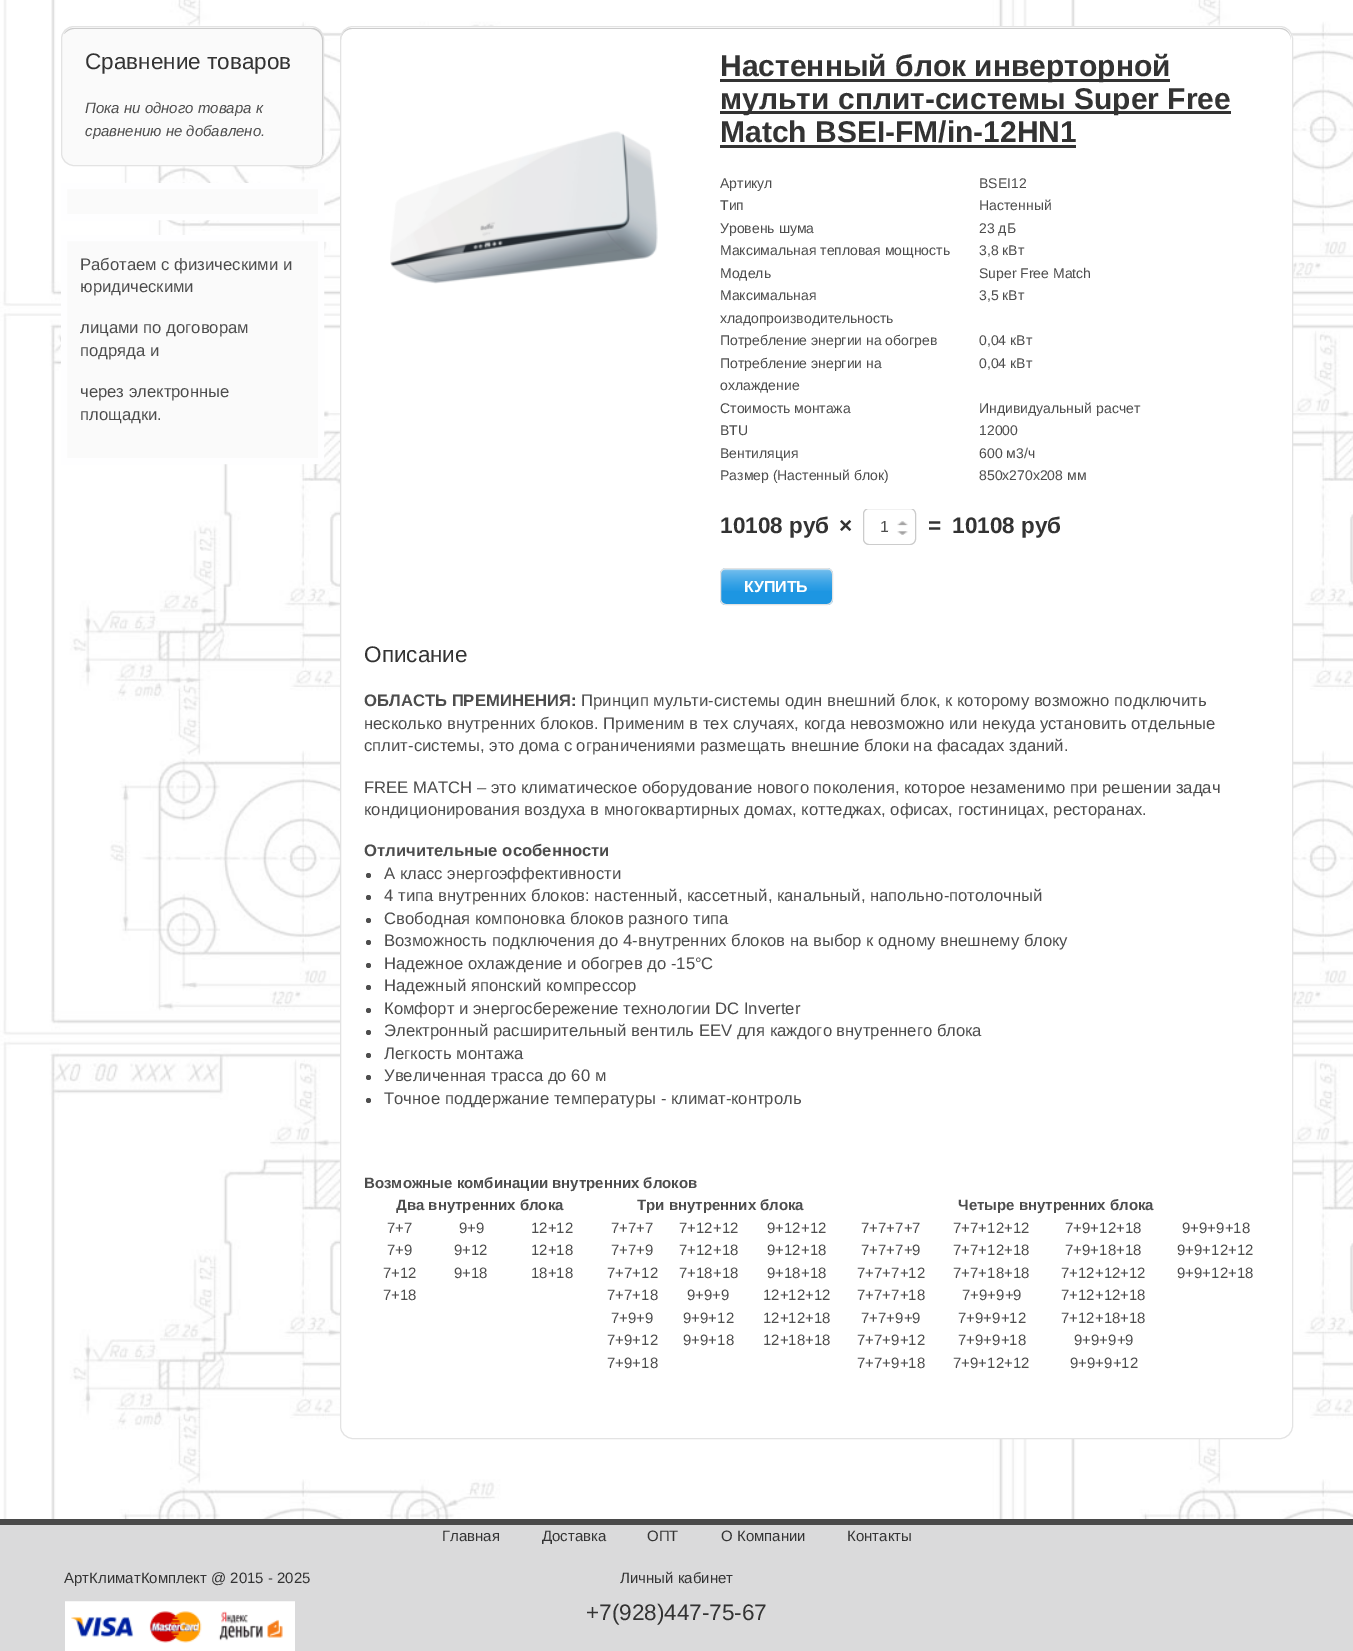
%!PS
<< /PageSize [1353 1651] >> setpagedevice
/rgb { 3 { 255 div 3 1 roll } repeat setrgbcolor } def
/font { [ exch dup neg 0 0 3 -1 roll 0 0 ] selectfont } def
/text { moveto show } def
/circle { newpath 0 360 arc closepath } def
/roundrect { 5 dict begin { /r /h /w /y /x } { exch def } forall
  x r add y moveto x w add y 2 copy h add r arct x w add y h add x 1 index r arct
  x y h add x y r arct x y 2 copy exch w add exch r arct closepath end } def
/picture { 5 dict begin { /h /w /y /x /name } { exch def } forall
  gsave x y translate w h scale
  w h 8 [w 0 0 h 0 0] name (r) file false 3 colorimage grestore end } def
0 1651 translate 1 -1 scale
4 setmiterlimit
218 218 219 rgb
0 0 1353 1651 rectfill
(img_01.rgb) 0 0 1353 1519 picture
250 250 250 rgb
61 26 263 140 13 roundrect fill
204 204 204 rgb
74 29 moveto 237 0 rlineto 6 0 11 5 11 11 rcurveto 0 115 rlineto 0 3 -1 5 -3 7 rcurveto 2 -2 4 -5 4 -8 rcurveto 0 -115 rlineto 0 -6 -5 -11 -11 -11 rcurveto -238 0 rlineto -4 0 -8 2 -10 6 rcurveto 3 -3 6 -5 10 -5 rcurveto closepath fill
227 227 227 rgb
61.5 26.5 262 139 12.5 roundrect stroke
250 250 250 rgb
64 186 moveto 257 0 rlineto 0 31 rlineto -257 0 rlineto closepath gsave fill grestore
254 254 255 rgb
6 setlinewidth
stroke
250 250 250 rgb
64 238 moveto 257 0 rlineto 0 223 rlineto -257 0 rlineto closepath gsave fill grestore
254 254 255 rgb
stroke
255 255 255 rgb
340 26 953 1413 13 roundrect fill
204 204 204 rgb
352 29 moveto 928 0 rlineto 6 0 11 5 11 11 rcurveto 0 -6 -4 -12 -11 -12 rcurveto -928 0 rlineto -7 0 -11 6 -11 12 rcurveto 0 -6 5 -11 11 -11 rcurveto closepath fill
227 227 227 rgb
1 setlinewidth
340.5 26.5 952 1412 12.5 roundrect stroke
(img_02.rgb) 390 131 268 153 picture
51 51 51 rgb
720 79 450 3 rectfill
720 111 511 3 rectfill
720 145 356 3 rectfill
gsave
720 509 519 36 rectclip
204 204 204 rgb
863.5 508.5 52 36 5.5 roundrect stroke
grestore
(img_03.rgb) 897 521 11 5 picture
(img_04.rgb) 897 531 11 4 picture
29 150 226 rgb
720 568 113 37 6 roundrect fill
(img_05.rgb) 720 568 113 23 picture
227 227 227 rgb
720.5 568.5 112 36 5.5 roundrect stroke
77 77 77 rgb
368.5 875.5 2.5 circle fill
368.5 897.5 2.5 circle fill
368.5 920.5 2.5 circle fill
368.5 942.5 2.5 circle fill
368.5 965.5 2.5 circle fill
368.5 987.5 2.5 circle fill
368.5 1010.5 2.5 circle fill
368.5 1032.5 2.5 circle fill
368.5 1055.5 2.5 circle fill
368.5 1077.5 2.5 circle fill
368.5 1100.5 2.5 circle fill
74 74 74 rgb
0 1519 1353 6 rectfill
(img_06.rgb) 65 1601 230 50 picture
/LiberationSans-Regular 22.5 font
51 51 51 rgb
(Сравнение товаров) 85 69 text
/LiberationSans-Italic 15 font
77 77 77 rgb
(Пока ни одного товара к) 85 113 text
(сравнению не добавлено.) 85 136 text
/LiberationSans-Regular 16.67 font
(Работаем с физическими и) 80 270 text
(юридическими) 80 292 text
(лицами по договорам) 80 333 text
(подряда и) 80 356 text
(через электронные) 80 397 text
(площадки.) 80 420 text
/LiberationSans-Bold 30 font
51 51 51 rgb
(Настенный блок инверторной) 720 76 text
(мульти сплит-системы Super Free) 720 109 text
(Match BSEI-FM/in-12HN1) 720 142 text
/LiberationSans-Regular 14 font
77 77 77 rgb
(Артикул) 720 188 text
(BSEI12) 979 188 text
(Тип) 720 210 text
(Настенный) 979 210 text
(Уровень шума) 720 233 text
(23 дБ) 979 233 text
(Максимальная тепловая мощность) 720 255 text
(3,8 кВт) 979 255 text
(Модель) 720 278 text
(Super Free Match) 979 278 text
(Максимальная) 720 300 text
(хладопроизводительность) 720 323 text
(3,5 кВт) 979 300 text
(Потребление энергии на обогрев) 720 345 text
(0,04 кВт) 979 345 text
(Потребление энергии на) 720 368 text
(охлаждение) 720 390 text
(0,04 кВт) 979 368 text
(Стоимость монтажа) 720 413 text
(Индивидуальный расчет) 979 413 text
(BTU) 720 435 text
(12000) 979 435 text
(Вентиляция) 720 458 text
(600 м3/ч) 979 458 text
(Размер \(Настенный блок\)) 720 480 text
(850x270x208 мм) 979 480 text
/LiberationSans-Bold 22.5 font
51 51 51 rgb
(10108 руб) 720 533 text
(×) 839 533 text
/LiberationSans-Regular 16 font
77 77 77 rgb
(1) 880 532 text
/LiberationSans-Bold 22.5 font
51 51 51 rgb
(=) 928 533 text
(10108 руб) 952 533 text
/LiberationSans-Bold 16 font
255 255 255 rgb
(КУПИТЬ) 744 592 text
/LiberationSans-Regular 22.5 font
51 51 51 rgb
(Описание) 364 662 text
/LiberationSans-Bold 16.67 font
77 77 77 rgb
(ОБЛАСТЬ ПРЕМИНЕНИЯ:) 364 706 text
/LiberationSans-Regular 16.67 font
(Принцип мульти-системы один внешний блок, к которому возможно подключить) 581 706 text
(несколько внутренних блоков. Применим в тех случаях, когда невозможно или некуда установить отдельные) 364 729 text
(сплит-системы, это дома с ограничениями размещать внешние блоки на фасадах зданий.) 364 751 text
(FREE MATCH – это климатическое оборудование нового поколения, которое незаменимо при решении задач) 364 793 text
(кондиционирования воздуха в многоквартирных домах, коттеджах, офисах, гостиницах, ресторанах.) 364 815 text
/LiberationSans-Bold 16.67 font
(Отличительные особенности) 364 856 text
/LiberationSans-Regular 16.67 font
(А класс энергоэффективности) 384 879 text
(4 типа внутренних блоков: настенный, кассетный, канальный, напольно-потолочный) 384 901 text
(Свободная компоновка блоков разного типа) 384 924 text
(Возможность подключения до 4-внутренних блоков на выбор к одному внешнему блоку) 384 946 text
(Надежное охлаждение и обогрев до -15°C) 384 969 text
(Надежный японский компрессор) 384 991 text
(Комфорт и энергосбережение технологии DC Inverter) 384 1014 text
(Электронный расширительный вентиль EEV для каждого внутреннего блока) 384 1036 text
(Легкость монтажа) 384 1059 text
(Увеличенная трасса до 60 м) 384 1081 text
(Точное поддержание температуры - климат-контроль) 384 1104 text
/LiberationSans-Bold 15 font
(Возможные комбинации внутренних блоков) 364 1188 text
(Два внутренних блока) 396 1210 text
(Три внутренних блока) 637 1210 text
(Четыре внутренних блока) 958 1210 text
/LiberationSans-Regular 15 font
(7+7) 387 1233 text
(9+9) 459 1233 text
(12+12) 531 1233 text
(7+7+7) 611 1233 text
(7+12+12) 679 1233 text
(9+12+12) 767 1233 text
(7+7+7+7) 861 1233 text
(7+7+12+12) 953 1233 text
(7+9+12+18) 1065 1233 text
(9+9+9+18) 1182 1233 text
(7+9) 387 1255 text
(9+12) 454 1255 text
(12+18) 531 1255 text
(7+7+9) 611 1255 text
(7+12+18) 679 1255 text
(9+12+18) 767 1255 text
(7+7+7+9) 861 1255 text
(7+7+12+18) 953 1255 text
(7+9+18+18) 1065 1255 text
(9+9+12+12) 1177 1255 text
(7+12) 383 1278 text
(9+18) 454 1278 text
(18+18) 531 1278 text
(7+7+12) 607 1278 text
(7+18+18) 679 1278 text
(9+18+18) 767 1278 text
(7+7+7+12) 857 1278 text
(7+7+18+18) 953 1278 text
(7+12+12+12) 1061 1278 text
(9+9+12+18) 1177 1278 text
(7+18) 383 1300 text
(7+7+18) 607 1300 text
(9+9+9) 687 1300 text
(12+12+12) 763 1300 text
(7+7+7+18) 857 1300 text
(7+9+9+9) 962 1300 text
(7+12+12+18) 1061 1300 text
(7+9+9) 611 1323 text
(9+9+12) 683 1323 text
(12+12+18) 763 1323 text
(7+7+9+9) 861 1323 text
(7+9+9+12) 958 1323 text
(7+12+18+18) 1061 1323 text
(7+9+12) 607 1345 text
(9+9+18) 683 1345 text
(12+18+18) 763 1345 text
(7+7+9+12) 857 1345 text
(7+9+9+18) 958 1345 text
(9+9+9+9) 1074 1345 text
(7+9+18) 607 1368 text
(7+7+9+18) 857 1368 text
(7+9+12+12) 953 1368 text
(9+9+9+12) 1070 1368 text
51 51 51 rgb
(Главная) 442 1541 text
(Доставка) 542 1541 text
(ОПТ) 647 1541 text
(О Компании) 721 1541 text
(Контакты) 847 1541 text
(АртКлиматКомплект @ 2015 - 2025) 64 1583 text
(Личный кабинет) 620 1583 text
/LiberationSans-Regular 22.5 font
(+7\(928\)447-75-67) 586 1620 text
showpage
